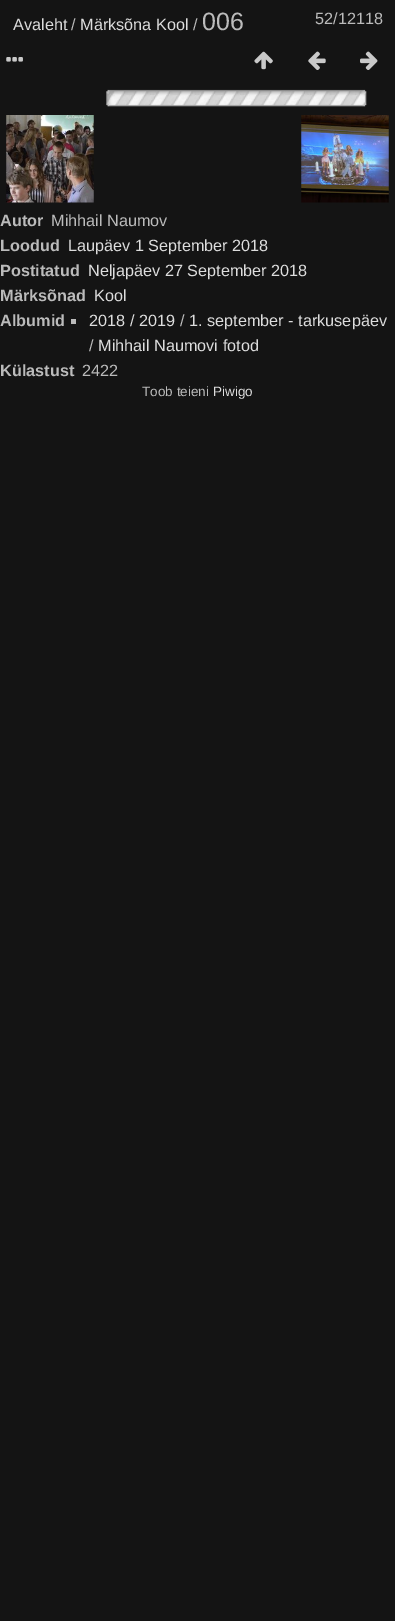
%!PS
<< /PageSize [395 1621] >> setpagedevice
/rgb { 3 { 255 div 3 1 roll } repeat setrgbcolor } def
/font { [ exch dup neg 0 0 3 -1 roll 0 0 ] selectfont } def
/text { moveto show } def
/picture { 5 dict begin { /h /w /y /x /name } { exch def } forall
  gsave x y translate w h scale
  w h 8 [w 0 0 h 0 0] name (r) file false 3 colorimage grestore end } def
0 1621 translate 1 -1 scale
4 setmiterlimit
20 20 20 rgb
0 0 395 1621 rectfill
(img_01.rgb) 6 57 17 5 picture
(img_02.rgb) 254 51 19 19 picture
(img_03.rgb) 308 51 18 19 picture
(img_04.rgb) 360 51 18 19 picture
(img_05.rgb) 106 89 261 18 picture
(img_06.rgb) 6 115 88 88 picture
(img_07.rgb) 301 115 88 88 picture
187 187 187 rgb
71 319 5 5 rectfill
/LiberationSans-Regular 16.25 font
221 221 221 rgb
(Avaleht) 13 30 text
187 187 187 rgb
(/) 71 30 text
221 221 221 rgb
(Märksõna Kool) 80 30 text
187 187 187 rgb
(/) 193 30 text
/LiberationSans-Regular 25 font
(006) 202 30 text
/LiberationSans-Regular 16.25 font
(52/12118) 315 24 text
/LiberationSans-Bold 16.25 font
(Autor) 0 226 text
/LiberationSans-Regular 16.25 font
(Mihhail Naumov) 51 226 text
/LiberationSans-Bold 16.25 font
(Loodud) 0 251 text
/LiberationSans-Regular 16.25 font
221 221 221 rgb
(Laupäev 1 September 2018) 68 251 text
/LiberationSans-Bold 16.25 font
187 187 187 rgb
(Postitatud) 0 276 text
/LiberationSans-Regular 16.25 font
221 221 221 rgb
(Neljapäev 27 September 2018) 88 276 text
/LiberationSans-Bold 16.25 font
187 187 187 rgb
(Märksõnad) 0 301 text
/LiberationSans-Regular 16.25 font
221 221 221 rgb
(Kool) 94 301 text
/LiberationSans-Bold 16.25 font
187 187 187 rgb
(Albumid) 0 326 text
/LiberationSans-Regular 16.25 font
221 221 221 rgb
(2018 / 2019) 89 326 text
187 187 187 rgb
(/) 180 326 text
221 221 221 rgb
(1. september - tarkusepäev) 189 326 text
187 187 187 rgb
(/) 89 351 text
221 221 221 rgb
(Mihhail Naumovi fotod) 98 351 text
/LiberationSans-Bold 16.25 font
187 187 187 rgb
(Külastust) 0 376 text
/LiberationSans-Regular 16.25 font
(2422) 82 376 text
/LiberationSans-Regular 13.5 font
(Toob teieni) 142 396 text
221 221 221 rgb
(Piwigo) 213 396 text
showpage
